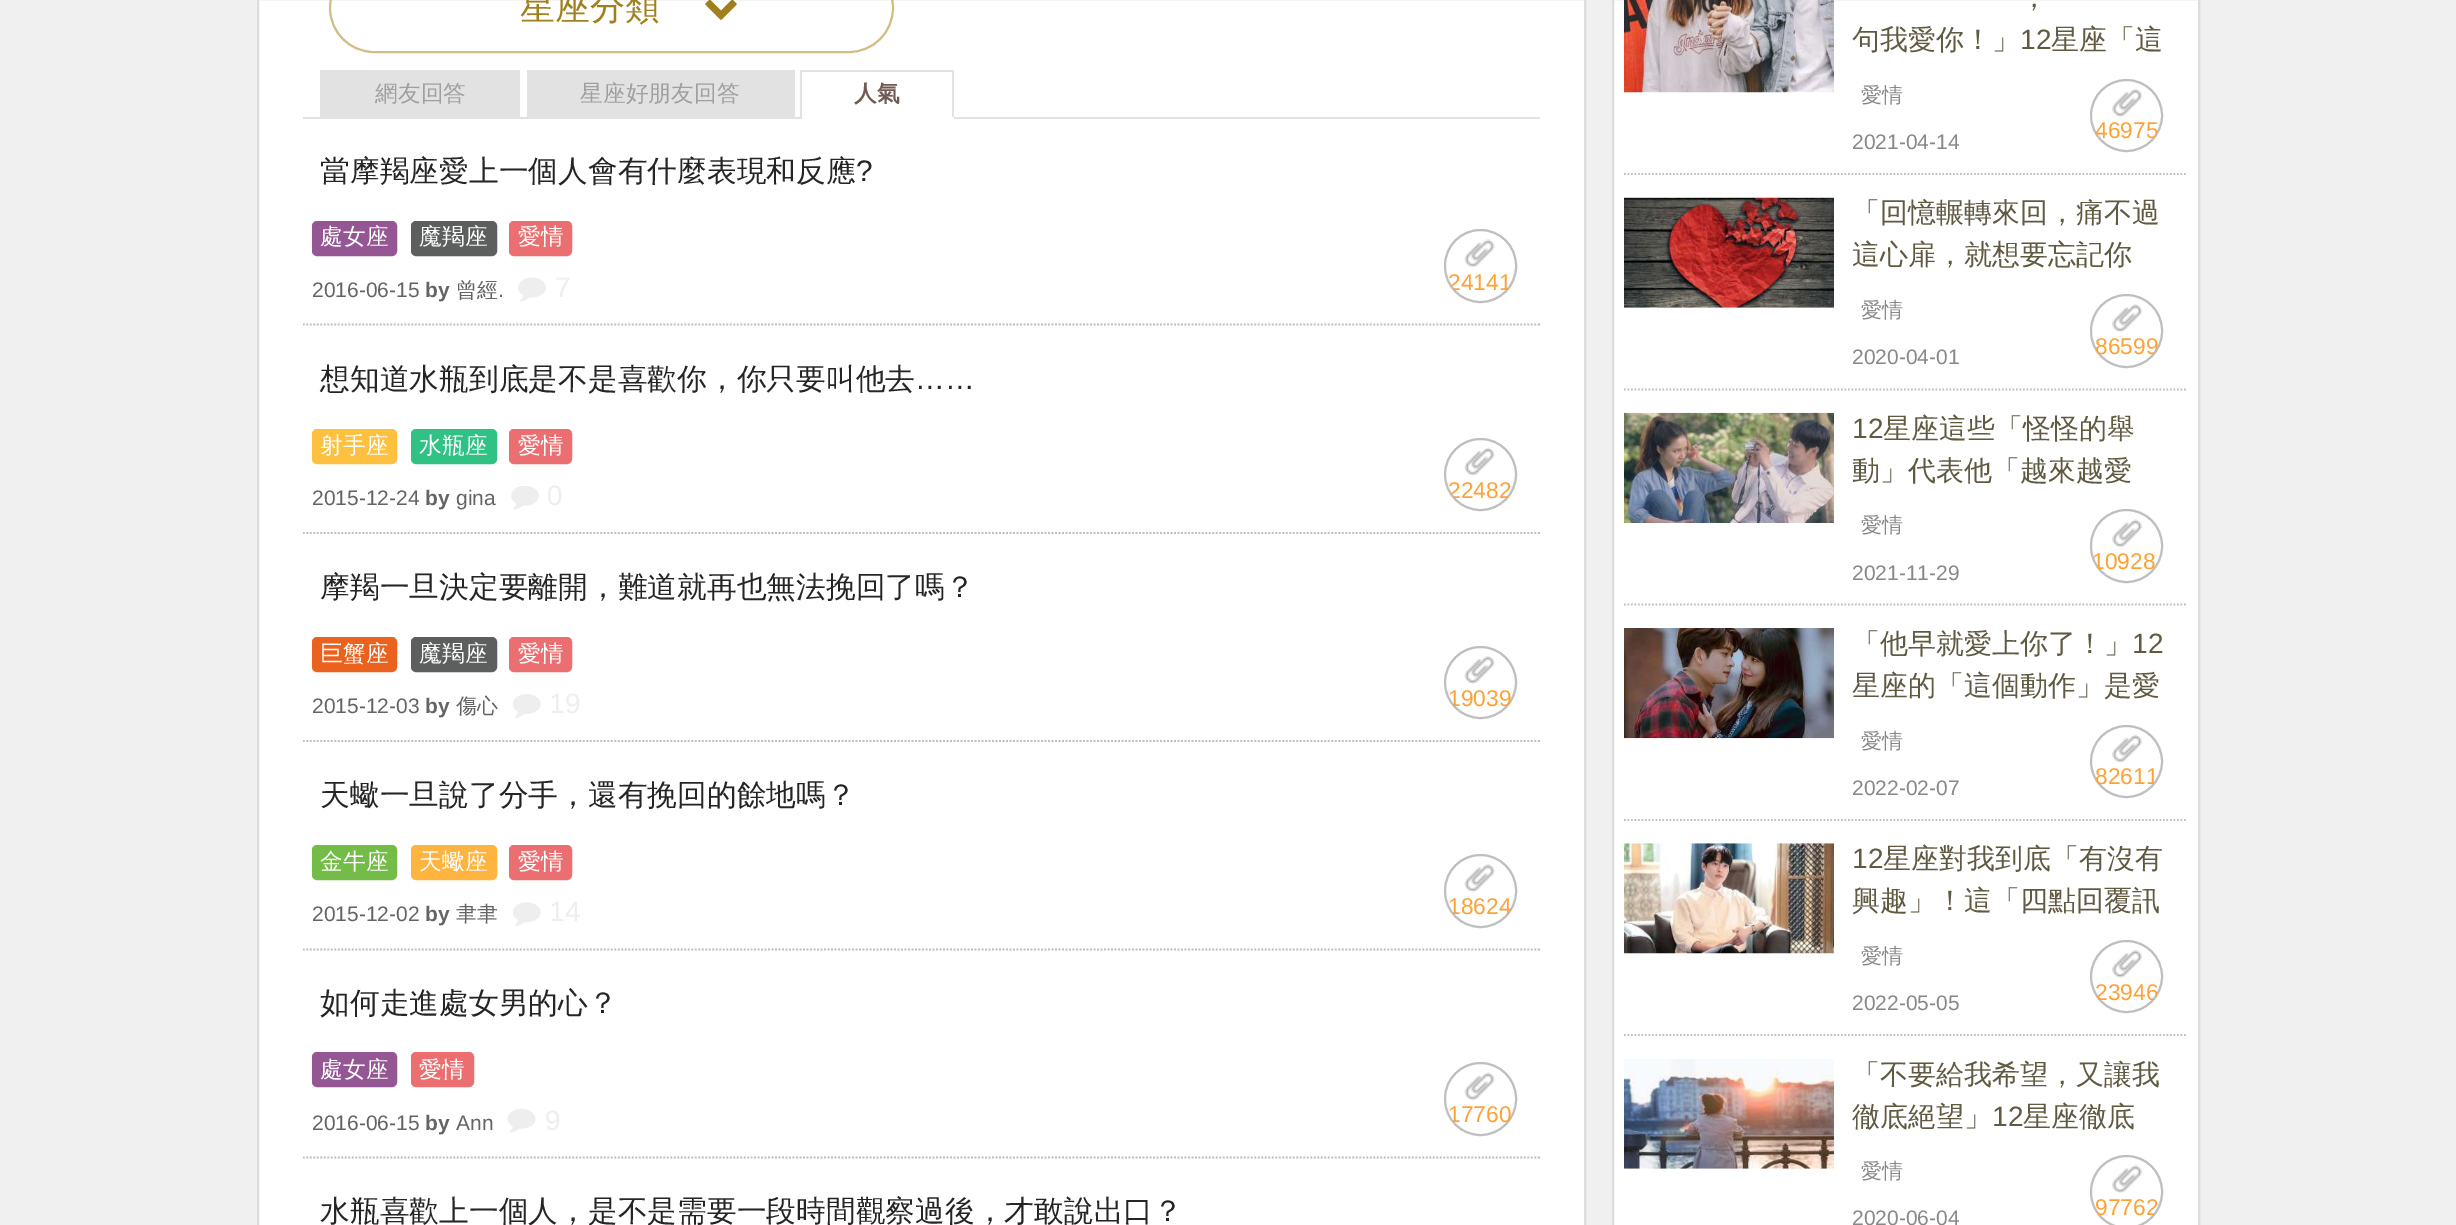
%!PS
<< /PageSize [2456 1225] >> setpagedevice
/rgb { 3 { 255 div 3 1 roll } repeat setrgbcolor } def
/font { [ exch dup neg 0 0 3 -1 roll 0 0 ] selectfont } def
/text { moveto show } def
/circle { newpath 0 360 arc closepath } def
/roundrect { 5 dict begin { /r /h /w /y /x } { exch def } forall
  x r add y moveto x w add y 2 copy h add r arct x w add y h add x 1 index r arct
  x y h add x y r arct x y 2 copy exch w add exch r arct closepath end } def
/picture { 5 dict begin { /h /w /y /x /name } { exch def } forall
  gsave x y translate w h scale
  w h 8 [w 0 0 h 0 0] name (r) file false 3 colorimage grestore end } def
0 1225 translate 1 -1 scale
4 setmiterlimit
240 240 240 rgb
0 0 2456 1225 rectfill
255 255 255 rgb
258 -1 moveto 1327 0 rlineto 0 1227 rlineto -1327 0 rlineto closepath gsave fill grestore
223 221 218 rgb
2 setlinewidth
stroke
210 190 132 rgb
330 -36 563 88 44 roundrect stroke
(img_01.rgb) 705 0 32 20 picture
226 226 226 rgb
303 117 1237 2 rectfill
320 70 200 47 rectfill
527 70 268 47 rectfill
800 70 154 2 rectfill
952 70 2 49 rectfill
255 255 255 rgb
800 117 154 2 rectfill
226 226 226 rgb
800 70 2 49 rectfill
191 191 191 rgb
1.8 setlinewidth
[1.75 1.75] 0 setdash
303 324.5 moveto 1237 0 rlineto stroke
149 86 148 rgb
313 222 83 33 4 roundrect gsave fill grestore
2 setlinewidth
[] 0 setdash
stroke
93 94 94 rgb
412 222 84 33 4 roundrect gsave fill grestore
stroke
235 111 112 rgb
510 222 61 33 4 roundrect gsave fill grestore
stroke
(img_02.rgb) 518 277 28 25 picture
(img_03.rgb) 1464 239 31 29 picture
191 191 191 rgb
1445 230 71 72 35.5 roundrect stroke
1.8 setlinewidth
[1.75 1.75] 0 setdash
303 533 moveto 1237 0 rlineto stroke
253 193 63 rgb
313 430 83 33 4 roundrect gsave fill grestore
2 setlinewidth
[] 0 setdash
stroke
48 193 133 rgb
412 430 84 33 4 roundrect gsave fill grestore
stroke
235 111 112 rgb
510 430 61 33 4 roundrect gsave fill grestore
stroke
(img_04.rgb) 511 486 28 24 picture
(img_05.rgb) 1464 447 31 29 picture
191 191 191 rgb
1480.5 474.5 35.5 circle stroke
1.8 setlinewidth
[1.75 1.75] 0 setdash
303 741 moveto 1237 0 rlineto stroke
235 97 30 rgb
313 638 83 33 4 roundrect gsave fill grestore
2 setlinewidth
[] 0 setdash
stroke
93 94 94 rgb
412 638 84 33 4 roundrect gsave fill grestore
stroke
235 111 112 rgb
510 638 61 33 4 roundrect gsave fill grestore
stroke
(img_06.rgb) 513 694 28 24 picture
(img_07.rgb) 1464 656 31 28 picture
191 191 191 rgb
1480.5 682.5 35.5 circle stroke
1.8 setlinewidth
[1.75 1.75] 0 setdash
303 949.5 moveto 1237 0 rlineto stroke
116 188 72 rgb
313 846 83 33 4 roundrect gsave fill grestore
2 setlinewidth
[] 0 setdash
stroke
255 180 63 rgb
412 846 84 33 4 roundrect gsave fill grestore
stroke
235 111 112 rgb
510 846 61 33 4 roundrect gsave fill grestore
stroke
(img_08.rgb) 513 902 28 24 picture
(img_09.rgb) 1464 864 31 29 picture
191 191 191 rgb
1445 855 71 72 35.5 roundrect stroke
1.8 setlinewidth
[1.75 1.75] 0 setdash
303 1157.5 moveto 1237 0 rlineto stroke
149 86 148 rgb
313 1053 83 33 4 roundrect gsave fill grestore
2 setlinewidth
[] 0 setdash
stroke
235 111 112 rgb
412 1053 61 33 4 roundrect gsave fill grestore
stroke
(img_10.rgb) 507 1108 29 25 picture
(img_03.rgb) 1464 1072 31 29 picture
191 191 191 rgb
1445 1063 71 72 35.5 roundrect stroke
255 255 255 rgb
1613 -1 moveto 586 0 rlineto 0 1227 rlineto -586 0 rlineto closepath gsave fill grestore
223 221 218 rgb
stroke
191 191 191 rgb
1.8 setlinewidth
[1.75 1.75] 0 setdash
1624 174 moveto 562 0 rlineto stroke
(img_11.rgb) 1624 0 210 93 picture
(img_12.rgb) 2112 89 30 28 picture
2 setlinewidth
[] 0 setdash
2126.5 115.5 35.5 circle stroke
1.8 setlinewidth
[1.75 1.75] 0 setdash
1624 389.5 moveto 562 0 rlineto stroke
(img_13.rgb) 1624 197 210 111 picture
(img_14.rgb) 2112 304 30 29 picture
2 setlinewidth
[] 0 setdash
2091 295 71 72 35.5 roundrect stroke
1.8 setlinewidth
[1.75 1.75] 0 setdash
1624 604.5 moveto 562 0 rlineto stroke
(img_15.rgb) 1624 412 210 111 picture
(img_16.rgb) 2112 519 30 29 picture
2 setlinewidth
[] 0 setdash
2091 510 71 72 35.5 roundrect stroke
1.8 setlinewidth
[1.75 1.75] 0 setdash
1624 820 moveto 562 0 rlineto stroke
(img_17.rgb) 1624 628 210 111 picture
(img_18.rgb) 2112 734 30 29 picture
2 setlinewidth
[] 0 setdash
2126.5 761.5 35.5 circle stroke
1.8 setlinewidth
[1.75 1.75] 0 setdash
1624 1035 moveto 562 0 rlineto stroke
(img_19.rgb) 1624 843 210 111 picture
(img_12.rgb) 2112 950 30 28 picture
2 setlinewidth
[] 0 setdash
2126.5 976.5 35.5 circle stroke
(img_20.rgb) 1624 1059 210 110 picture
(img_14.rgb) 2112 1165 30 29 picture
2091 1156 71 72 35.5 roundrect stroke
/WenQuanYiZenHei-Medium 35 font
160 128 29 rgb
(星座分類) 520 19 text
/WenQuanYiZenHei-Medium 22.75 font
159 159 159 rgb
(網友回答) 375 101 text
(星座好朋友回答) 580 101 text
/WenQuanYiZenHei-Bold 22.75 font
113 90 82 rgb
(人氣) 854 101 text
/WenQuanYiZenHei-Medium 29.75 font
37 37 37 rgb
(當摩羯座愛上一個人會有什麼表現和反應) 320 181 text
/LiberationSans-Regular 29.75 font
(?) 856 181 text
/WenQuanYiZenHei-Medium 22.75 font
255 255 255 rgb
(處女座) 320 244 text
(魔羯座) 419 244 text
(愛情) 518 244 text
/LiberationSans-Regular 21 font
100 100 100 rgb
(2016-06-15) 312 297 text
/LiberationSans-Bold 21 font
(by) 425 297 text
/WenQuanYiZenHei-Medium 21 font
(曾經) 456 297 text
/LiberationSans-Regular 21 font
(.) 498 297 text
/LiberationSans-Regular 28 font
238 238 238 rgb
(7) 555 297 text
gsave
1446 231 70 70 35 roundrect clip newpath
/LiberationSans-Regular 22.75 font
255 161 51 rgb
(24141) 1448 290 text
grestore
/WenQuanYiZenHei-Medium 29.75 font
37 37 37 rgb
(想知道水瓶到底是不是喜歡你，你只要叫他去) 320 389 text
/LiberationSans-Regular 29.75 font
(……) 915 389 text
/WenQuanYiZenHei-Medium 22.75 font
255 255 255 rgb
(射手座) 320 453 text
(水瓶座) 419 453 text
(愛情) 518 453 text
/LiberationSans-Regular 21 font
100 100 100 rgb
(2015-12-24) 312 505 text
/LiberationSans-Bold 21 font
(by) 425 505 text
/LiberationSans-Regular 21 font
(gina) 456 505 text
/LiberationSans-Regular 28 font
238 238 238 rgb
(0) 547 505 text
gsave
1446 439 70 70 35 roundrect clip newpath
/LiberationSans-Regular 22.75 font
255 161 51 rgb
(22482) 1448 498 text
grestore
/WenQuanYiZenHei-Medium 29.75 font
37 37 37 rgb
(摩羯一旦決定要離開，難道就再也無法挽回了嗎？) 320 597 text
/WenQuanYiZenHei-Medium 22.75 font
255 255 255 rgb
(巨蟹座) 320 661 text
(魔羯座) 419 661 text
(愛情) 518 661 text
/LiberationSans-Regular 21 font
100 100 100 rgb
(2015-12-03) 312 713 text
/LiberationSans-Bold 21 font
(by) 425 713 text
/WenQuanYiZenHei-Medium 21 font
(傷心) 456 713 text
/LiberationSans-Regular 28 font
238 238 238 rgb
(19) 549 713 text
gsave
1446 648 70 70 35 roundrect clip newpath
/LiberationSans-Regular 22.75 font
255 161 51 rgb
(19039) 1448 706 text
grestore
/WenQuanYiZenHei-Medium 29.75 font
37 37 37 rgb
(天蠍一旦說了分手，還有挽回的餘地嗎？) 320 805 text
/WenQuanYiZenHei-Medium 22.75 font
255 255 255 rgb
(金牛座) 320 869 text
(天蠍座) 419 869 text
(愛情) 518 869 text
/LiberationSans-Regular 21 font
100 100 100 rgb
(2015-12-02) 312 921 text
/LiberationSans-Bold 21 font
(by) 425 921 text
/WenQuanYiZenHei-Medium 21 font
(聿聿) 456 921 text
/LiberationSans-Regular 28 font
238 238 238 rgb
(14) 549 921 text
gsave
1446 856 70 70 35 roundrect clip newpath
/LiberationSans-Regular 22.75 font
255 161 51 rgb
(18624) 1448 914 text
grestore
/WenQuanYiZenHei-Medium 29.75 font
37 37 37 rgb
(如何走進處女男的心？) 320 1013 text
/WenQuanYiZenHei-Medium 22.75 font
255 255 255 rgb
(處女座) 320 1077 text
(愛情) 419 1077 text
/LiberationSans-Regular 21 font
100 100 100 rgb
(2016-06-15) 312 1130 text
/LiberationSans-Bold 21 font
(by) 425 1130 text
/LiberationSans-Regular 21 font
(Ann) 456 1130 text
/LiberationSans-Regular 28 font
238 238 238 rgb
(9) 545 1130 text
gsave
1446 1064 70 70 35 roundrect clip newpath
/LiberationSans-Regular 22.75 font
255 161 51 rgb
(17760) 1448 1122 text
grestore
/WenQuanYiZenHei-Medium 29.75 font
37 37 37 rgb
(水瓶喜歡上一個人，是不是需要一段時間觀察過後，才敢說出口？) 320 1221 text
/WenQuanYiZenHei-Medium 28 font
97 90 67 rgb
(，) 2020 7 text
(句我愛你！」) 1852 49 text
/LiberationSans-Regular 28 font
(12) 2020 49 text
/WenQuanYiZenHei-Medium 28 font
(星座「這) 2051 49 text
/WenQuanYiZenHei-Medium 21 font
136 136 136 rgb
(愛情) 1861 102 text
gsave
2091 81 70 70 35 roundrect clip newpath
/LiberationSans-Regular 22.75 font
255 161 51 rgb
(46975) 2095 138 text
grestore
/LiberationSans-Regular 21 font
(2021-04-14) 1852 149 text
/WenQuanYiZenHei-Medium 28 font
97 90 67 rgb
(「回憶輾轉來回，痛不過) 1852 222 text
(這心扉，就想要忘記你) 1852 264 text
/WenQuanYiZenHei-Medium 21 font
136 136 136 rgb
(愛情) 1861 317 text
gsave
2091 296 70 70 35 roundrect clip newpath
/LiberationSans-Regular 22.75 font
255 161 51 rgb
(86599) 2095 354 text
grestore
/LiberationSans-Regular 21 font
(2020-04-01) 1852 364 text
/LiberationSans-Regular 28 font
97 90 67 rgb
(12) 1852 438 text
/WenQuanYiZenHei-Medium 28 font
(星座這些「怪怪的舉) 1883 438 text
(動」代表他「越來越愛) 1852 480 text
/WenQuanYiZenHei-Medium 21 font
136 136 136 rgb
(愛情) 1861 532 text
gsave
2091 511 70 70 35 roundrect clip newpath
/LiberationSans-Regular 22.75 font
255 161 51 rgb
(10928) 2092 569 text
grestore
/LiberationSans-Regular 21 font
(2021-11-29) 1852 580 text
/WenQuanYiZenHei-Medium 28 font
97 90 67 rgb
(「他早就愛上你了！」) 1852 653 text
/LiberationSans-Regular 28 font
(12) 2132 653 text
/WenQuanYiZenHei-Medium 28 font
(星座的「這個動作」是愛) 1852 695 text
/WenQuanYiZenHei-Medium 21 font
136 136 136 rgb
(愛情) 1861 748 text
gsave
2091 726 70 70 35 roundrect clip newpath
/LiberationSans-Regular 22.75 font
255 161 51 rgb
(82611) 2095 784 text
grestore
/LiberationSans-Regular 21 font
(2022-02-07) 1852 795 text
/LiberationSans-Regular 28 font
97 90 67 rgb
(12) 1852 868 text
/WenQuanYiZenHei-Medium 28 font
(星座對我到底「有沒有) 1883 868 text
(興趣」！這「四點回覆訊) 1852 910 text
/WenQuanYiZenHei-Medium 21 font
136 136 136 rgb
(愛情) 1861 963 text
gsave
2091 942 70 70 35 roundrect clip newpath
/LiberationSans-Regular 22.75 font
255 161 51 rgb
(23946) 2095 1000 text
grestore
/LiberationSans-Regular 21 font
(2022-05-05) 1852 1010 text
/WenQuanYiZenHei-Medium 28 font
97 90 67 rgb
(「不要給我希望，又讓我) 1852 1084 text
(徹底絕望」) 1852 1126 text
/LiberationSans-Regular 28 font
(12) 1992 1126 text
/WenQuanYiZenHei-Medium 28 font
(星座徹底) 2023 1126 text
/WenQuanYiZenHei-Medium 21 font
136 136 136 rgb
(愛情) 1861 1178 text
gsave
2091 1157 70 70 35 roundrect clip newpath
/LiberationSans-Regular 22.75 font
255 161 51 rgb
(97762) 2095 1215 text
grestore
/LiberationSans-Regular 21 font
(2020-06-04) 1852 1225 text
showpage
